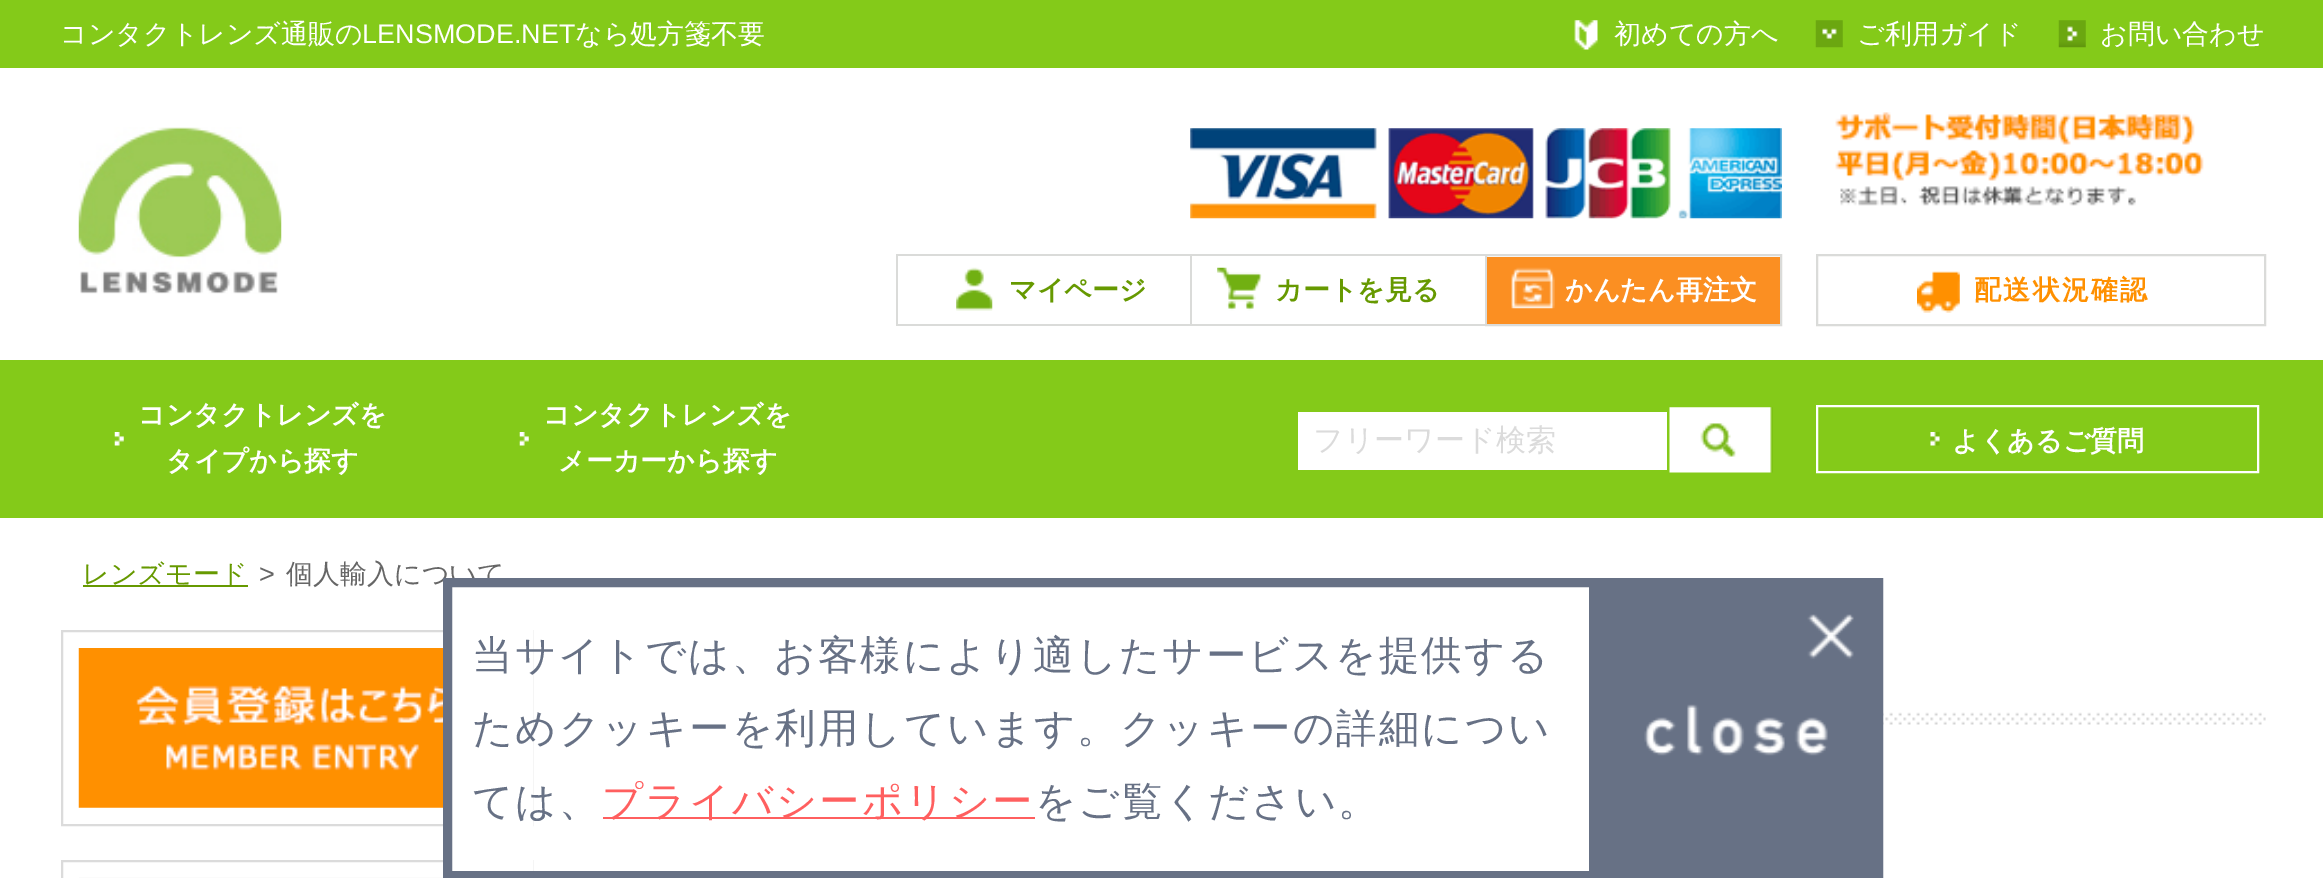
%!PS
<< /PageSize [2323 878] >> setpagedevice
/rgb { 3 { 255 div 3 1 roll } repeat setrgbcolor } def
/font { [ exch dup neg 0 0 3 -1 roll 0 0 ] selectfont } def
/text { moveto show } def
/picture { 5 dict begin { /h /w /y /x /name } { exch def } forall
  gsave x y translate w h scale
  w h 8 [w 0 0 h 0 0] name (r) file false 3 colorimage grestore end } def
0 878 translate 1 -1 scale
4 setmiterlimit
255 255 255 rgb
0 0 2323 878 rectfill
132 202 25 rgb
0 0 2323 68 rectfill
(img_01.rgb) 1574 20 24 30 picture
(img_02.rgb) 1815 20 28 28 picture
(img_03.rgb) 2058 20 28 28 picture
(img_04.rgb) 78 127 204 167 picture
(img_05.rgb) 1190 128 592 91 picture
(img_06.rgb) 1835 112 369 94 picture
218 219 217 rgb
896 254 589 2 rectfill
896 324 589 2 rectfill
896 254 2 72 rectfill
(img_07.rgb) 956 267 37 44 picture
1190 254 2 72 rectfill
(img_08.rgb) 1217 267 45 44 picture
2 setlinewidth
1486 255 295 70 rectstroke
251 143 34 rgb
1487 257 293 67 rectfill
(img_09.rgb) 1511 267 44 42 picture
218 219 217 rgb
1817 255 448 70 rectstroke
(img_10.rgb) 1917 271 43 42 picture
132 202 25 rgb
0 360 2323 158 rectfill
(img_11.rgb) 114 432 10 14 picture
(img_11.rgb) 519 432 10 14 picture
255 255 255 rgb
1298 412 369 58 rectfill
(img_12.rgb) 1669 407 104 66 picture
(img_13.rgb) 1930 432 10 14 picture
1817 406 441 66 rectstroke
102 153 0 rgb
83 585 165 2 rectfill
219 219 219 rgb
62 631 470 194 rectstroke
(img_14.rgb) 78 648 365 160 picture
62 861 470 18 rectstroke
251 251 251 rgb
79 877 364 1 rectfill
(img_15.rgb) 1883 631 383 94 picture
255 255 255 rgb
452 630 81 241 rectfill
/WenQuanYiZenHei-Medium 27 font
(コンタクトレンズ通販の) 60 43 text
/LiberationSans-Regular 27 font
(LENSMODE.NET) 362 43 text
/WenQuanYiZenHei-Medium 27 font
(なら処方箋不要) 575 43 text
(初めての方へ) 1614 43 text
(ご利用ガイド) 1857 43 text
(お問い合わせ) 2100 43 text
/WenQuanYiZenHei-Bold 27 font
102 153 0 rgb
(マイページ) 1009 299 text
(カートを見る) 1275 299 text
255 255 255 rgb
(かんたん再注文) 1565 299 text
255 144 0 rgb
1974 299 moveto 2.25 0 (配送状況確認) ashow
255 255 255 rgb
(コンタクトレンズを) 138 424 text
(タイプから探す) 166 470 text
(コンタクトレンズを) 543 424 text
(メーカーから探す) 558 470 text
/WenQuanYiZenHei-Medium 30 font
219 219 219 rgb
(フリーワード検索) 1313 450 text
/WenQuanYiZenHei-Bold 27 font
255 255 255 rgb
(よくあるご質問) 1952 450 text
/WenQuanYiZenHei-Medium 27 font
102 153 0 rgb
(レンズモード) 82 583 text
/LiberationSans-Regular 27 font
102 102 102 rgb
(>) 259 583 text
/WenQuanYiZenHei-Medium 27 font
(個人輸入について) 286 583 text
103 113 133 rgb
9 setlinewidth
447.5 582.5 1431 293 rectstroke
/WenQuanYiZenHei-Medium 40.5 font
472 669 moveto 2 0 (当サイトでは、お客様により適したサービスを提供する) ashow
472 742 moveto 2 0 (ためクッキーを利用しています。クッキーの詳細につい) ashow
472 815 moveto 2 0 (ては、) ashow
255 95 95 rgb
603 817 432 2 rectfill
602 815 moveto 2 0 (プライバシーポリシー) ashow
103 113 133 rgb
1035 815 moveto 2 0 (をご覧ください。) ashow
1589 587 285 284 rectfill
(img_16.rgb) 1644 614 210 142 picture
showpage
